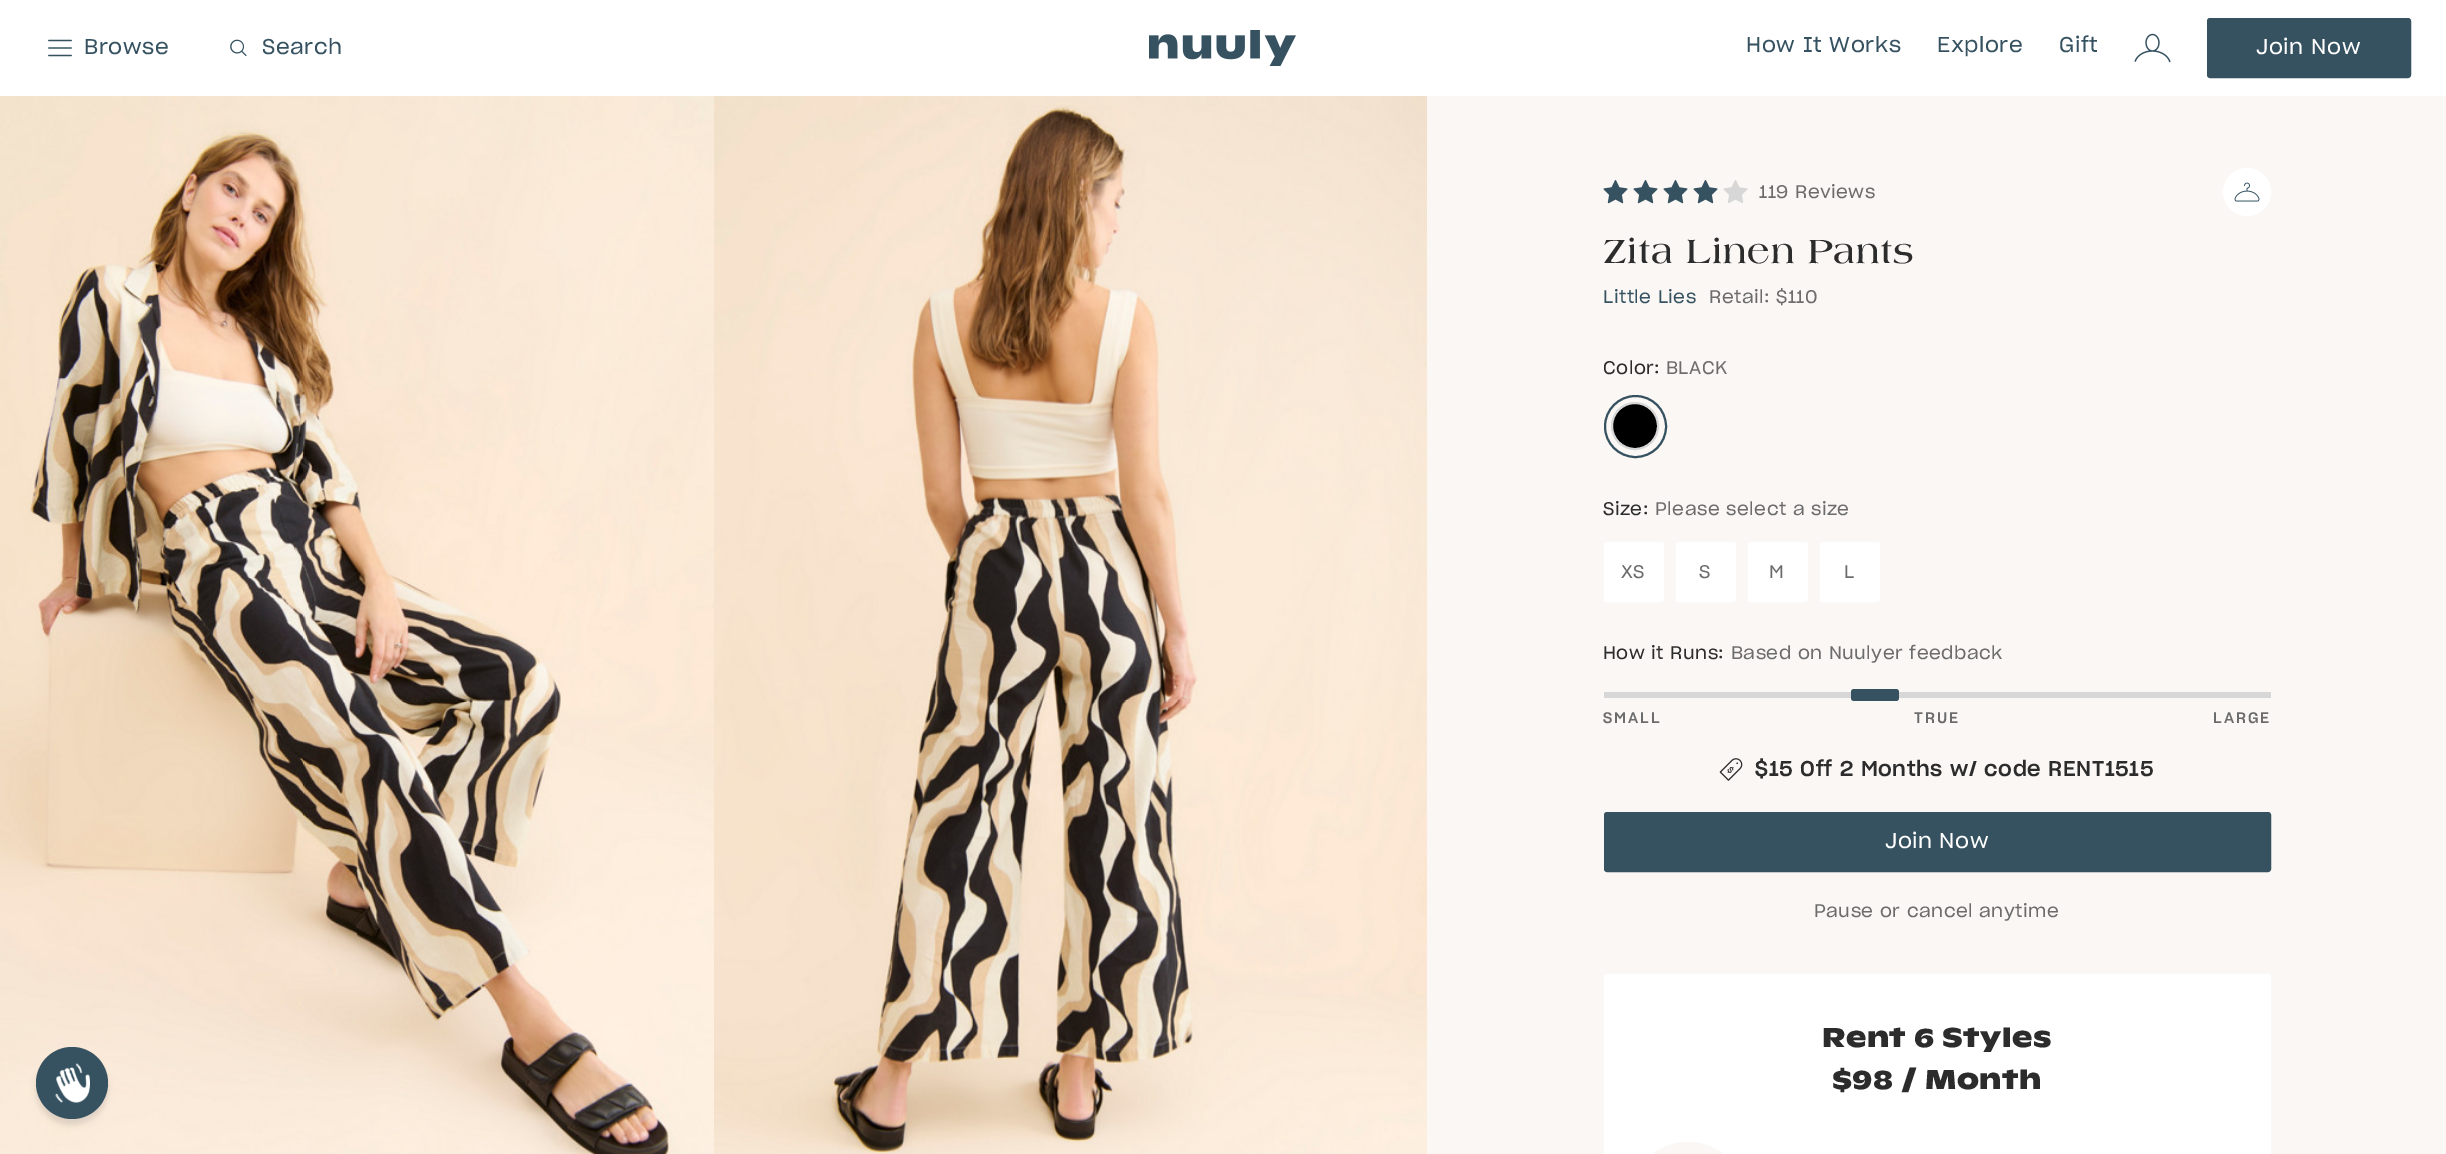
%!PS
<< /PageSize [2446 1154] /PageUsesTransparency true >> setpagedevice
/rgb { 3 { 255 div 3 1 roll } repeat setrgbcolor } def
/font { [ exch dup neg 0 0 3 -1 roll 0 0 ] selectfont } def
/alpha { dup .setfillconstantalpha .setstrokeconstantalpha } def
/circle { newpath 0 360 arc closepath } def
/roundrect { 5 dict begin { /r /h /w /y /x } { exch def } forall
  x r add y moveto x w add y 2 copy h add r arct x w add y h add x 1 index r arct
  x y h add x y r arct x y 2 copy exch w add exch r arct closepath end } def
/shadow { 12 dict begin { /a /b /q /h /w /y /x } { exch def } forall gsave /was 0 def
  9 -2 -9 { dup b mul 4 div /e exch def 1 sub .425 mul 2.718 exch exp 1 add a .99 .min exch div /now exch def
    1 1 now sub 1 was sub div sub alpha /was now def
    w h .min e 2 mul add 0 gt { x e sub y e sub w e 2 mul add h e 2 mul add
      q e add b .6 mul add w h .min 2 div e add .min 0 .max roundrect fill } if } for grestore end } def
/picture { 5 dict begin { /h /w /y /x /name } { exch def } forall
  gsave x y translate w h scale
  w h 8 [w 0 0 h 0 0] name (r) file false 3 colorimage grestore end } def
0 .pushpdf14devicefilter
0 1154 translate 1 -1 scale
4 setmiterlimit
250 247 244 rgb
0 0 2446 1154 rectfill
(img_06.rgb) 0 96 714 1058 picture
107 107 107 rgb
36 1053 72 72 36 3 0.2 shadow
54 82 97 rgb
72 1083 36 circle fill
(img_01.rgb) 55 1063 35 40 picture
255 255 255 rgb
0 0 2446 96 rectfill
(img_02.rgb) 48 39 24 18 picture
(img_03.rgb) 230 39 17 17 picture
(img_04.rgb) 1149 30 147 36 picture
(img_05.rgb) 2134 33 37 30 picture
54 82 97 rgb
2208 19 202 58 2 roundrect gsave fill grestore
2 setlinewidth
stroke
(img_07.rgb) 714 96 713 1058 picture
(img_08.rgb) 1603 180 25 24 picture
(img_08.rgb) 1633 180 25 24 picture
(img_08.rgb) 1663 180 25 24 picture
(img_08.rgb) 1693 180 25 24 picture
(img_09.rgb) 1723 180 25 24 picture
255 255 255 rgb
2247 192 23 circle gsave fill grestore
stroke
(img_10.rgb) 2234 182 26 20 picture
54 82 97 rgb
1635.5 426.5 30.5 circle stroke
0 0 0 rgb
1635 426 23 circle gsave fill grestore
215 215 215 rgb
stroke
255 255 255 rgb
1605 543 58 58 2 roundrect gsave fill grestore
stroke
1677 543 58 58 2 roundrect gsave fill grestore
stroke
1749 543 58 58 2 roundrect gsave fill grestore
stroke
1821 543 58 58 2 roundrect gsave fill grestore
stroke
215 215 215 rgb
1604 692 667 6 rectfill
54 82 97 rgb
1851 689 48 12 3 roundrect fill
(img_11.rgb) 1719 758 24 23 picture
1605 813 665 58 2 roundrect gsave fill grestore
stroke
255 255 255 rgb
1604 974 667 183 3 roundrect fill
250 247 244 rgb
1628 1142 120 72 60 roundrect fill
/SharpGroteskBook-Regular 21 font
54 82 97 rgb
84 54 moveto 0.6 0 (Browse) ashow
gsave
263 38 351 21 rectclip
262 54 moveto 0.6 0 (Search) ashow
grestore
1746 52 moveto 0.6 0 (How It Works) ashow
1937 52 moveto 0.6 0 (Explore) ashow
2059 52 moveto 0.6 0 (Gift) ashow
255 255 255 rgb
2256 54 moveto 0.6 0 (Join Now) ashow
/SharpGroteskBook-Regular 18 font
108 108 108 rgb
1759 198 moveto 0.45 0 (119 Reviews) ashow
/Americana-Bold 36 font
44 44 44 rgb
1603 263 moveto 0.9 0 (Zita Linen Pants) ashow
/SharpGroteskBook-Regular 18 font
54 82 97 rgb
1603 303 moveto 0.45 0 (Little Lies) ashow
108 108 108 rgb
1709 303 moveto 0.45 0 (Retail: $110) ashow
44 44 44 rgb
1603 374 moveto 0.45 0 (Color:) ashow
108 108 108 rgb
1666 374 moveto 0.45 0 (BLACK) ashow
44 44 44 rgb
1603 515 moveto 0.45 0 (Size:) ashow
108 108 108 rgb
1655 515 moveto 0.45 0 (Please select a size) ashow
1621 578 moveto 0.45 0 (XS) ashow
1699 578 moveto 0.45 0 (S) ashow
1769 578 moveto 0.45 0 (M) ashow
1844 578 moveto 0.45 0 (L) ashow
44 44 44 rgb
1603 659 moveto 0.45 0 (How it Runs:) ashow
108 108 108 rgb
1731 659 moveto 0.45 0 (Based on Nuulyer feedback) ashow
/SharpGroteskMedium-Medium 15 font
1603 723 moveto 2 0 (SMALL) ashow
1914 723 moveto 2 0 (TRUE) ashow
2213 723 moveto 2 0 (LARGE) ashow
/SharpGroteskMedium-Medium 21 font
44 44 44 rgb
1755 776 moveto 0.6 0 ($15 Off 2 Months w/ code RENT1515) ashow
/SharpGroteskBook-Regular 21 font
255 255 255 rgb
1885 848 moveto 0.45 0 (Join Now) ashow
/SharpGroteskBook-Regular 18 font
108 108 108 rgb
1814 917 moveto 0.45 0 (Pause or cancel anytime) ashow
/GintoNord-Bold 27 font
44 44 44 rgb
1822 1047 moveto 0.45 0 (Rent 6 Styles) ashow
1832 1089 moveto 0.45 0 ($98 / Month) ashow
.poppdf14devicefilter showpage
